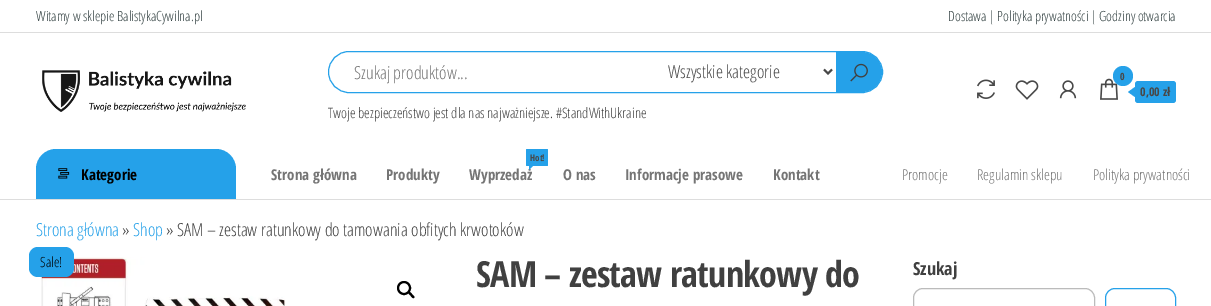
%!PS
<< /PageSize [1211 306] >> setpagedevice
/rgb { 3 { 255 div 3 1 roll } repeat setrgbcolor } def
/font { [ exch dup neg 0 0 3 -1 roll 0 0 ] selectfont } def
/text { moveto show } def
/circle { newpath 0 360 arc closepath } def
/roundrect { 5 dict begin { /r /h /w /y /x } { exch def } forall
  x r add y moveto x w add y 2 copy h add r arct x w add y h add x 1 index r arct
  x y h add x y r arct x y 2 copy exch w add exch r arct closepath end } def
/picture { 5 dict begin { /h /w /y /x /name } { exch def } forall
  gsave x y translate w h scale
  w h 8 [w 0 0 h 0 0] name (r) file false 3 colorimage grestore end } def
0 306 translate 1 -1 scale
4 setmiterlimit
255 255 255 rgb
0 0 1211 306 rectfill
221 221 221 rgb
0 32 1211 1 rectfill
(img_01.rgb) 42 70 204 42 picture
37 161 233 rgb
328.5 51.5 554 41 20.5 roundrect stroke
72 72 72 rgb
2 setlinewidth
824 69.5 moveto 4 4 rlineto 4 -4 rlineto stroke
37 161 233 rgb
836 52 moveto 26 0 rlineto 11 0 20 9 20 20 rcurveto 0 11 -9 20 -20 20 rcurveto -26 0 rlineto closepath fill
(img_02.rgb) 850 63 18 19 picture
(img_03.rgb) 977 79 18 20 picture
(img_04.rgb) 1015 80 24 20 picture
(img_05.rgb) 1059 80 18 19 picture
(img_06.rgb) 1100 78 18 22 picture
1123 76 10 circle fill
1135 81 41 22 3 roundrect fill
1135 87 moveto 0 10 rlineto -7 -5 rlineto closepath fill
221 221 221 rgb
0 199 1211 1 rectfill
37 161 233 rgb
56 149 moveto 160 0 rlineto 11 0 20 9 20 20 rcurveto 0 30 rlineto -200 0 rlineto 0 -30 rlineto 0 -11 9 -20 20 -20 rcurveto closepath fill
(img_07.rgb) 58 168 12 11 picture
526 149 22 17 1 roundrect fill
(img_08.rgb) 41 257 245 49 picture
29 247 45 30 9 roundrect fill
0 0 0 rgb
404 288 6 circle stroke
408.5 292 moveto 1 -1 3 1.5 3.5 2 rcurveto 0.5 1 3.5 2.5 2 4 rcurveto -1 1 -3 -1.5 -3.5 -2.5 rcurveto -0.5 -0.5 -3 -2 -2 -3.5 rcurveto closepath fill
187 187 187 rgb
1 setlinewidth
913.5 288.5 181 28 9.5 roundrect stroke
37 161 233 rgb
1105.5 288.5 70 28 9.5 roundrect stroke
/OpenSansCondensed-Light 14 font
51 65 66 rgb
(Witamy w sklepie BalistykaCywilna.pl) 36 21 text
(Dostawa | Polityka prywatności | Godziny otwarcia) 948 21 text
/OpenSansCondensed-Light 18 font
117 117 117 rgb
(Szukaj produktów...) 354 79 text
72 72 72 rgb
(Wszystkie kategorie) 668 78 text
/OpenSansCondensed-Light 14.4 font
64 64 64 rgb
(Twoje bezpieczeństwo jest dla nas najważniejsze. #StandWithUkraine) 328 118 text
/OpenSansCondensed-Bold 10 font
72 72 72 rgb
(0) 1120 80 text
/OpenSansCondensed-Bold 12 font
(0,00 zł) 1140 96 text
/OpenSansCondensed-Bold 15 font
0 0 0 rgb
(Kategorie) 81 180 text
117 117 117 rgb
(Strona główna) 271 180 text
(Produkty) 386 180 text
/OpenSansCondensed-Bold 9 font
72 72 72 rgb
(Hot!) 530 161 text
/OpenSansCondensed-Bold 15 font
117 117 117 rgb
(Wyprzedaż) 469 180 text
37 161 233 rgb
529 165 moveto 5 0 rlineto -5 5 rlineto closepath fill
117 117 117 rgb
(O nas) 563 180 text
(Informacje prasowe) 625 180 text
(Kontakt) 773 180 text
/OpenSansCondensed-Light 15 font
(Promocje) 902 180 text
(Regulamin sklepu) 977 180 text
(Polityka prywatności) 1093 180 text
/OpenSansCondensed-Light 18 font
37 161 233 rgb
(Strona główna) 36 236 text
64 64 64 rgb
(») 122 236 text
37 161 233 rgb
(Shop) 133 236 text
64 64 64 rgb
(» SAM – zestaw ratunkowy do tamowania obfitych krwotoków) 166 236 text
/OpenSansCondensed-Light 14 font
0 0 0 rgb
(Sale!) 40 267 text
/OpenSansCondensed-Bold 36 font
64 64 64 rgb
476 287 moveto -0.75 0 (SAM – zestaw ratunkowy do) ashow
/OpenSansCondensed-Bold 18 font
(Szukaj) 913 275 text
showpage
